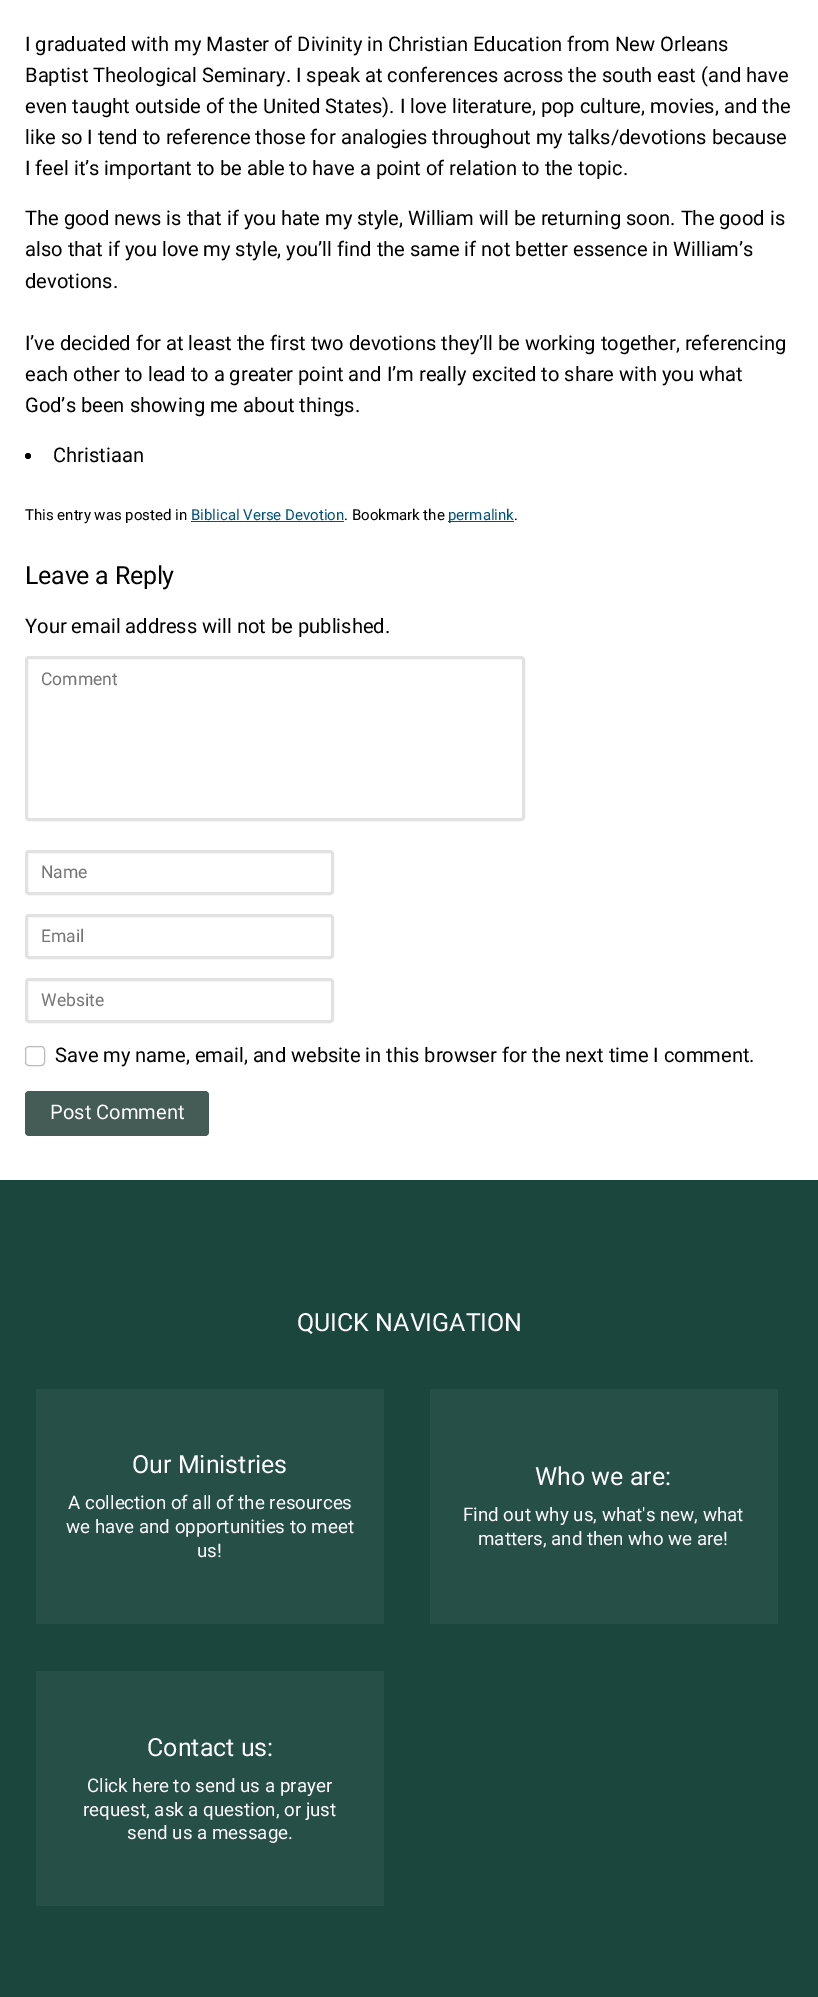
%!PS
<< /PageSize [818 1997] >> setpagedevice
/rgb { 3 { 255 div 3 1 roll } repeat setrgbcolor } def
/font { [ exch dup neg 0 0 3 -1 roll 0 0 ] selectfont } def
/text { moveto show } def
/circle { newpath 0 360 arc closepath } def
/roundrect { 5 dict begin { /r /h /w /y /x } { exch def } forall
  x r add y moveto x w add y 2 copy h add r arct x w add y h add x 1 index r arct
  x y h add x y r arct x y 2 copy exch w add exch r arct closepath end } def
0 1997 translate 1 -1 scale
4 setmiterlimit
255 255 255 rgb
0 0 818 1997 rectfill
0 0 0 rgb
28 456 3 circle fill
0 83 124 rgb
191 521 153 1 rectfill
448 521 66 1 rectfill
226 226 226 rgb
3 setlinewidth
26.5 657.5 497 162 2.5 roundrect stroke
26.5 851.5 306 42 2.5 roundrect stroke
26.5 915.5 306 42 2.5 roundrect stroke
26.5 979.5 306 42 2.5 roundrect stroke
187 187 187 rgb
1 setlinewidth
25.5 1046.5 19 19 3.5 roundrect stroke
69 92 86 rgb
25 1091 184 45 4 roundrect fill
27 70 61 rgb
0 1180 818 817 rectfill
38 79 71 rgb
36 1389 348 235 rectfill
430 1389 348 235 rectfill
36 1671 348 235 rectfill
/Roboto-Regular 20.1 font
0 0 0 rgb
(I graduated with my Master of Divinity in Christian Education from New Orleans) 25 51 text
(Baptist Theological Seminary. I speak at conferences across the south east \(and have) 25 82 text
(even taught outside of the United States\). I love literature, pop culture, movies, and the) 25 113 text
(like so I tend to reference those for analogies throughout my talks/devotions because) 25 144 text
(I feel it’s important to be able to have a point of relation to the topic.) 25 175 text
(The good news is that if you hate my style, William will be returning soon. The good is) 25 225 text
(also that if you love my style, you’ll find the same if not better essence in William’s) 25 256 text
(devotions.) 25 288 text
(I’ve decided for at least the first two devotions they’ll be working together, referencing) 25 350 text
(each other to lead to a greater point and I’m really excited to share with you what) 25 381 text
(God’s been showing me about things.) 25 412 text
(Christiaan) 53 462 text
/Roboto-Regular 15 font
(This entry was posted in) 25 520 text
0 83 124 rgb
(Biblical Verse Devotion) 191 520 text
0 0 0 rgb
(. Bookmark the) 344 520 text
0 83 124 rgb
(permalink) 448 520 text
0 0 0 rgb
(.) 514 520 text
/Roboto-Regular 25 font
25 584 moveto -0.25 0 (Leave a Reply) ashow
/Roboto-Regular 20.1 font
(Your email address will not be published.) 25 633 text
/Roboto-Regular 17.5 font
117 117 117 rgb
(Comment) 41 685 text
(Name) 41 878 text
(Email) 41 942 text
(Website) 41 1006 text
/Roboto-Regular 20.1 font
0 0 0 rgb
(Save my name, email, and website in this browser for the next time I comment.) 55 1062 text
255 255 255 rgb
(Post Comment) 50 1119 text
/Roboto-Regular 25 font
(QUICK NAVIGATION) 297 1331 text
(Our Ministries) 132 1473 text
/Roboto-Regular 18.75 font
(A collection of all of the resources) 68 1509 text
(we have and opportunities to meet) 66 1533 text
(us!) 197 1557 text
/Roboto-Regular 25 font
(Who we are:) 535 1485 text
/Roboto-Regular 18.75 font
(Find out why us, what's new, what) 463 1521 text
(matters, and then who we are!) 478 1545 text
/Roboto-Regular 25 font
(Contact us:) 147 1756 text
/Roboto-Regular 18.75 font
(Click here to send us a prayer) 87 1792 text
(request, ask a question, or just) 83 1816 text
(send us a message.) 127 1839 text
showpage
